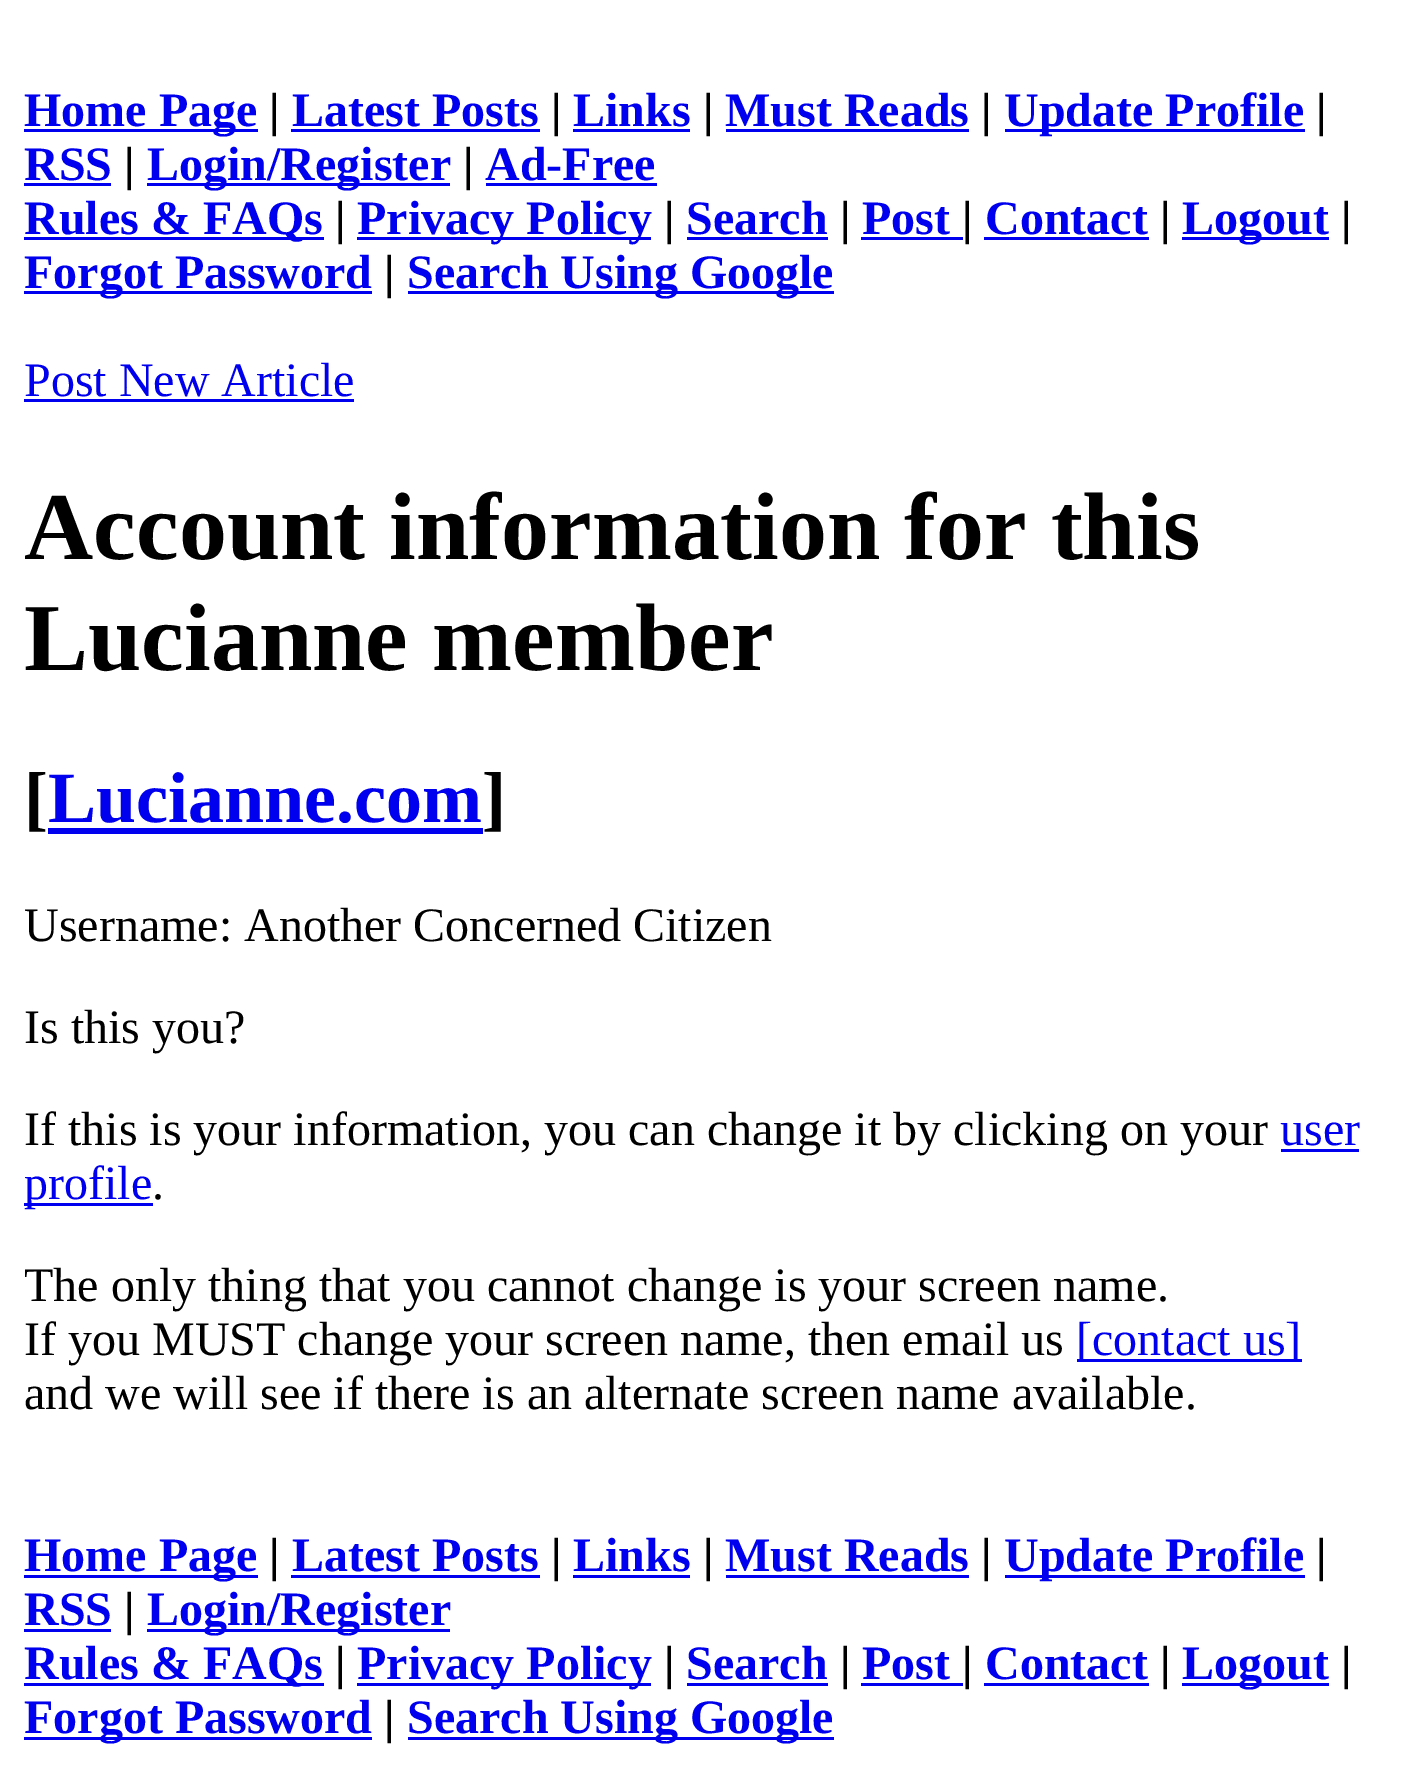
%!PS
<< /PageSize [1417 1779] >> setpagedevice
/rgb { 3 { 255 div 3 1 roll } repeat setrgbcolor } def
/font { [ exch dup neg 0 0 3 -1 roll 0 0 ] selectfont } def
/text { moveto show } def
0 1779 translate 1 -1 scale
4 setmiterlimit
255 255 255 rgb
0 0 1417 1779 rectfill
0 0 238 rgb
24 129 234 3 rectfill
291 129 249 3 rectfill
573 129 117 3 rectfill
726 129 243 3 rectfill
1005 129 300 3 rectfill
24 183 87 3 rectfill
147 183 303 3 rectfill
486 183 171 3 rectfill
24 237 300 3 rectfill
357 237 294 3 rectfill
687 237 141 3 rectfill
861 237 102 3 rectfill
984 237 165 3 rectfill
1182 237 147 3 rectfill
24 291 348 3 rectfill
408 291 426 3 rectfill
24 399 330 3 rectfill
48 828 435 6 rectfill
1281 1149 78 3 rectfill
24 1203 129 3 rectfill
1077 1359 225 3 rectfill
24 1575 234 3 rectfill
291 1575 249 3 rectfill
573 1575 117 3 rectfill
726 1575 243 3 rectfill
1005 1575 300 3 rectfill
24 1629 87 3 rectfill
147 1629 303 3 rectfill
24 1683 300 3 rectfill
357 1683 294 3 rectfill
687 1683 141 3 rectfill
861 1683 102 3 rectfill
984 1683 165 3 rectfill
1182 1683 147 3 rectfill
24 1737 348 3 rectfill
408 1737 426 3 rectfill
/LiberationSerif-Bold 48 font
(Home Page) 24 126 text
0 0 0 rgb
(|) 269 126 text
0 0 238 rgb
(Latest Posts) 292 126 text
0 0 0 rgb
(|) 551 126 text
0 0 238 rgb
(Links) 573 126 text
0 0 0 rgb
(|) 703 126 text
0 0 238 rgb
(Must Reads) 725 126 text
0 0 0 rgb
(|) 981 126 text
0 0 238 rgb
(Update Profile) 1004 126 text
0 0 0 rgb
(|) 1316 126 text
0 0 238 rgb
(RSS) 24 180 text
0 0 0 rgb
(|) 124 180 text
0 0 238 rgb
(Login/Register) 147 180 text
0 0 0 rgb
(|) 463 180 text
0 0 238 rgb
(Ad-Free) 485 180 text
(Rules & FAQs) 24 234 text
0 0 0 rgb
(|) 335 234 text
0 0 238 rgb
(Privacy Policy) 357 234 text
0 0 0 rgb
(|) 664 234 text
0 0 238 rgb
(Search) 686 234 text
0 0 0 rgb
(|) 840 234 text
0 0 238 rgb
(Post) 862 234 text
0 0 0 rgb
(|) 962 234 text
0 0 238 rgb
(Contact) 985 234 text
0 0 0 rgb
(|) 1160 234 text
0 0 238 rgb
(Logout) 1182 234 text
0 0 0 rgb
(|) 1341 234 text
0 0 238 rgb
(Forgot Password) 24 288 text
0 0 0 rgb
(|) 384 288 text
0 0 238 rgb
(Search Using Google) 407 288 text
/LiberationSerif-Regular 48 font
(Post New Article) 24 396 text
/LiberationSerif-Bold 96 font
0 0 0 rgb
(Account information for this) 24 559 text
(Lucianne member) 24 670 text
/LiberationSerif-Bold 72 font
([) 24 822 text
0 0 238 rgb
(Lucianne.com) 48 822 text
0 0 0 rgb
(]) 482 822 text
/LiberationSerif-Regular 48 font
(Username: Another Concerned Citizen) 24 941 text
(Is this you?) 24 1043 text
(If this is your information, you can change it by clicking on your) 24 1145 text
0 0 238 rgb
(user) 1280 1145 text
(profile) 24 1199 text
0 0 0 rgb
(.) 152 1199 text
(The only thing that you cannot change is your screen name.) 24 1301 text
(If you MUST change your screen name, then email us) 24 1355 text
0 0 238 rgb
([contact us]) 1076 1355 text
0 0 0 rgb
(and we will see if there is an alternate screen name available.) 24 1409 text
/LiberationSerif-Bold 48 font
0 0 238 rgb
(Home Page) 24 1571 text
0 0 0 rgb
(|) 269 1571 text
0 0 238 rgb
(Latest Posts) 292 1571 text
0 0 0 rgb
(|) 551 1571 text
0 0 238 rgb
(Links) 573 1571 text
0 0 0 rgb
(|) 703 1571 text
0 0 238 rgb
(Must Reads) 725 1571 text
0 0 0 rgb
(|) 981 1571 text
0 0 238 rgb
(Update Profile) 1004 1571 text
0 0 0 rgb
(|) 1316 1571 text
0 0 238 rgb
(RSS) 24 1625 text
0 0 0 rgb
(|) 124 1625 text
0 0 238 rgb
(Login/Register) 147 1625 text
(Rules & FAQs) 24 1679 text
0 0 0 rgb
(|) 335 1679 text
0 0 238 rgb
(Privacy Policy) 357 1679 text
0 0 0 rgb
(|) 664 1679 text
0 0 238 rgb
(Search) 686 1679 text
0 0 0 rgb
(|) 840 1679 text
0 0 238 rgb
(Post) 862 1679 text
0 0 0 rgb
(|) 962 1679 text
0 0 238 rgb
(Contact) 985 1679 text
0 0 0 rgb
(|) 1160 1679 text
0 0 238 rgb
(Logout) 1182 1679 text
0 0 0 rgb
(|) 1341 1679 text
0 0 238 rgb
(Forgot Password) 24 1733 text
0 0 0 rgb
(|) 384 1733 text
0 0 238 rgb
(Search Using Google) 407 1733 text
showpage
